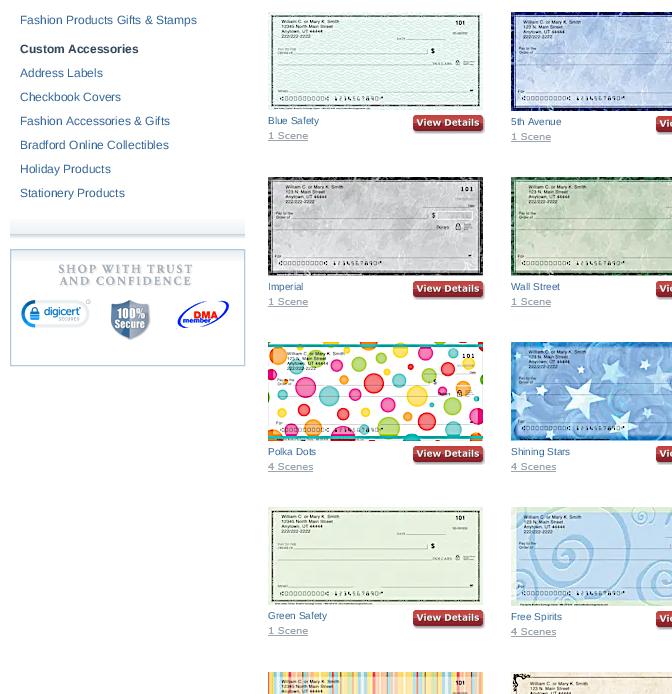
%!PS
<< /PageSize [672 694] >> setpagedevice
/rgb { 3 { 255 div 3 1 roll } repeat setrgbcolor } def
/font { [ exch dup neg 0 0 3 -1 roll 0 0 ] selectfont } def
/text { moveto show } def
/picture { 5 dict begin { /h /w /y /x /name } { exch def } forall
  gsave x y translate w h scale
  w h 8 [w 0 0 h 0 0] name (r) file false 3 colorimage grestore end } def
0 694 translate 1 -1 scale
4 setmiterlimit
255 255 255 rgb
0 0 672 694 rectfill
(img_01.rgb) 10 219 235 20 picture
(img_02.rgb) 11 250 233 11 picture
180 200 220 rgb
10.5 249.5 234 116 rectstroke
(img_03.rgb) 58 264 135 23 picture
(img_04.rgb) 21 299 70 29 picture
(img_05.rgb) 111 300 40 40 picture
(img_06.rgb) 176 300 53 29 picture
(img_07.rgb) 268 12 215 98 picture
(img_08.rgb) 413 115 72 19 picture
(img_09.rgb) 268 132 40 9 picture
(img_10.rgb) 511 12 161 99 picture
(img_11.rgb) 656 116 16 19 picture
(img_09.rgb) 511 133 40 9 picture
(img_12.rgb) 268 177 215 99 picture
(img_08.rgb) 413 281 72 19 picture
(img_09.rgb) 268 298 40 9 picture
(img_13.rgb) 511 177 161 99 picture
(img_11.rgb) 656 281 16 19 picture
(img_09.rgb) 511 298 40 9 picture
(img_14.rgb) 268 342 215 99 picture
(img_08.rgb) 413 446 72 19 picture
(img_15.rgb) 268 463 46 9 picture
(img_16.rgb) 511 342 161 99 picture
(img_11.rgb) 656 446 16 19 picture
(img_15.rgb) 511 463 46 9 picture
(img_17.rgb) 268 507 215 98 picture
(img_08.rgb) 413 610 72 19 picture
(img_09.rgb) 268 627 40 9 picture
(img_18.rgb) 511 507 161 99 picture
(img_11.rgb) 656 611 16 19 picture
(img_15.rgb) 511 628 46 9 picture
(img_19.rgb) 268 672 215 22 picture
(img_20.rgb) 511 672 161 22 picture
/LiberationSans-Regular 12 font
51 102 153 rgb
(Fashion Products Gifts & Stamps) 20 24 text
/LiberationSans-Bold 12 font
50 70 90 rgb
(Custom Accessories) 20 53 text
/LiberationSans-Regular 12 font
51 102 153 rgb
(Address Labels) 20 77 text
(Checkbook Covers) 20 101 text
(Fashion Accessories & Gifts) 20 125 text
(Bradford Online Collectibles) 20 149 text
(Holiday Products) 20 173 text
(Stationery Products) 20 197 text
/LiberationSans-Regular 10 font
(Blue Safety) 268 124 text
(5th Avenue) 511 125 text
(Imperial) 268 290 text
(Wall Street) 511 290 text
(Polka Dots) 268 455 text
(Shining Stars) 511 455 text
(Green Safety) 268 619 text
(Free Spirits) 511 620 text
showpage
